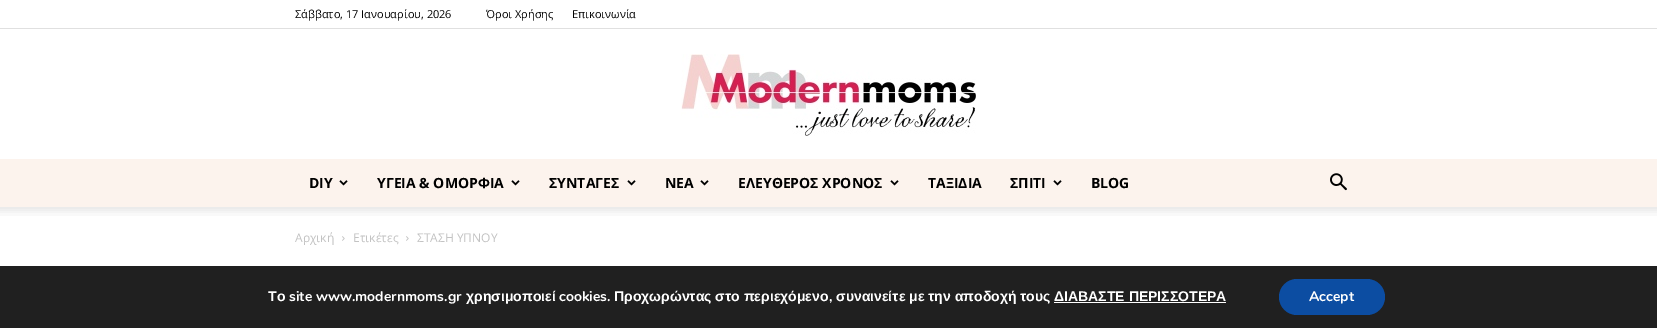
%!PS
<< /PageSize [1657 328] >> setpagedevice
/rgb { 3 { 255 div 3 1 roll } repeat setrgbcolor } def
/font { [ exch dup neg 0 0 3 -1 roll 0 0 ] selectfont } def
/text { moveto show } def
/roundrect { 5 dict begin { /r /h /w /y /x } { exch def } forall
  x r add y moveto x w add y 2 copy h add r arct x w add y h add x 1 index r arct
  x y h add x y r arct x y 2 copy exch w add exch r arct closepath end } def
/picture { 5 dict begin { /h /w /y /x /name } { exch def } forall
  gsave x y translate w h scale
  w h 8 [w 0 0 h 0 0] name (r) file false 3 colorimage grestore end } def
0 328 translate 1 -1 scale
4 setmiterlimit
255 255 255 rgb
0 0 1657 328 rectfill
224 224 224 rgb
0 28 1657 1 rectfill
(img_01.rgb) 681 54 295 82 picture
252 243 237 rgb
0 159 1657 48 rectfill
(img_02.rgb) 339 180 9 6 picture
(img_02.rgb) 511 180 9 6 picture
(img_02.rgb) 627 180 9 6 picture
(img_02.rgb) 700 180 9 6 picture
(img_02.rgb) 890 180 9 6 picture
(img_02.rgb) 1053 180 9 6 picture
(img_03.rgb) 1330 173 17 18 picture
(img_04.rgb) 0 207 1657 9 picture
(img_05.rgb) 342 236 3 5 picture
(img_05.rgb) 406 236 3 5 picture
32 32 32 rgb
0 266 1657 62 rectfill
255 255 255 rgb
1054 302 172 1 rectfill
12 77 162 rgb
1279 279 106 36 18 roundrect fill
/OpenSans-Regular 11 font
0 0 0 rgb
(Σάββατο, 17 Ιανουαρίου, 2026) 295 18 text
(Όροι Χρήσης) 486 18 text
(Επικοινωνία) 572 18 text
/OpenSans-Bold 14 font
(DIY) 309 188 text
(ΥΓΕΙΑ & ΟΜΟΡΦΙΑ) 377 188 text
(ΣΥΝΤΑΓΕΣ) 549 188 text
(ΝΕΑ) 665 188 text
(ΕΛΕΥΘΕΡΟΣ ΧΡΟΝΟΣ) 738 188 text
(ΤΑΞΙΔΙΑ) 928 188 text
(ΣΠΙΤΙ) 1010 188 text
(BLOG) 1091 188 text
/OpenSans-Regular 12 font
195 195 195 rgb
(Αρχική) 295 242 text
(Ετικέτες) 353 242 text
(ΣΤΑΣΗ ΥΠΝΟΥ) 417 242 text
/LiberationSans-Bold 14 font
255 255 255 rgb
(Το) 268 301 text
/Nunito-Bold 14 font
(site www.modernmoms.gr) 289 301 text
/LiberationSans-Bold 14 font
(χρησιμοποιεί) 466 301 text
/Nunito-Bold 14 font
(cookies.) 559 301 text
/LiberationSans-Bold 14 font
(Προχωρώντας στο περιεχόμενο) 614 301 text
/Nunito-Bold 14 font
(,) 829 301 text
/LiberationSans-Bold 14 font
(συναινείτε με την αποδοχή τους ΔΙΑΒΑΣΤΕ ΠΕΡΙΣΣΟΤΕΡΑ) 836 301 text
/Nunito-Bold 14 font
(Accept) 1309 301 text
showpage
